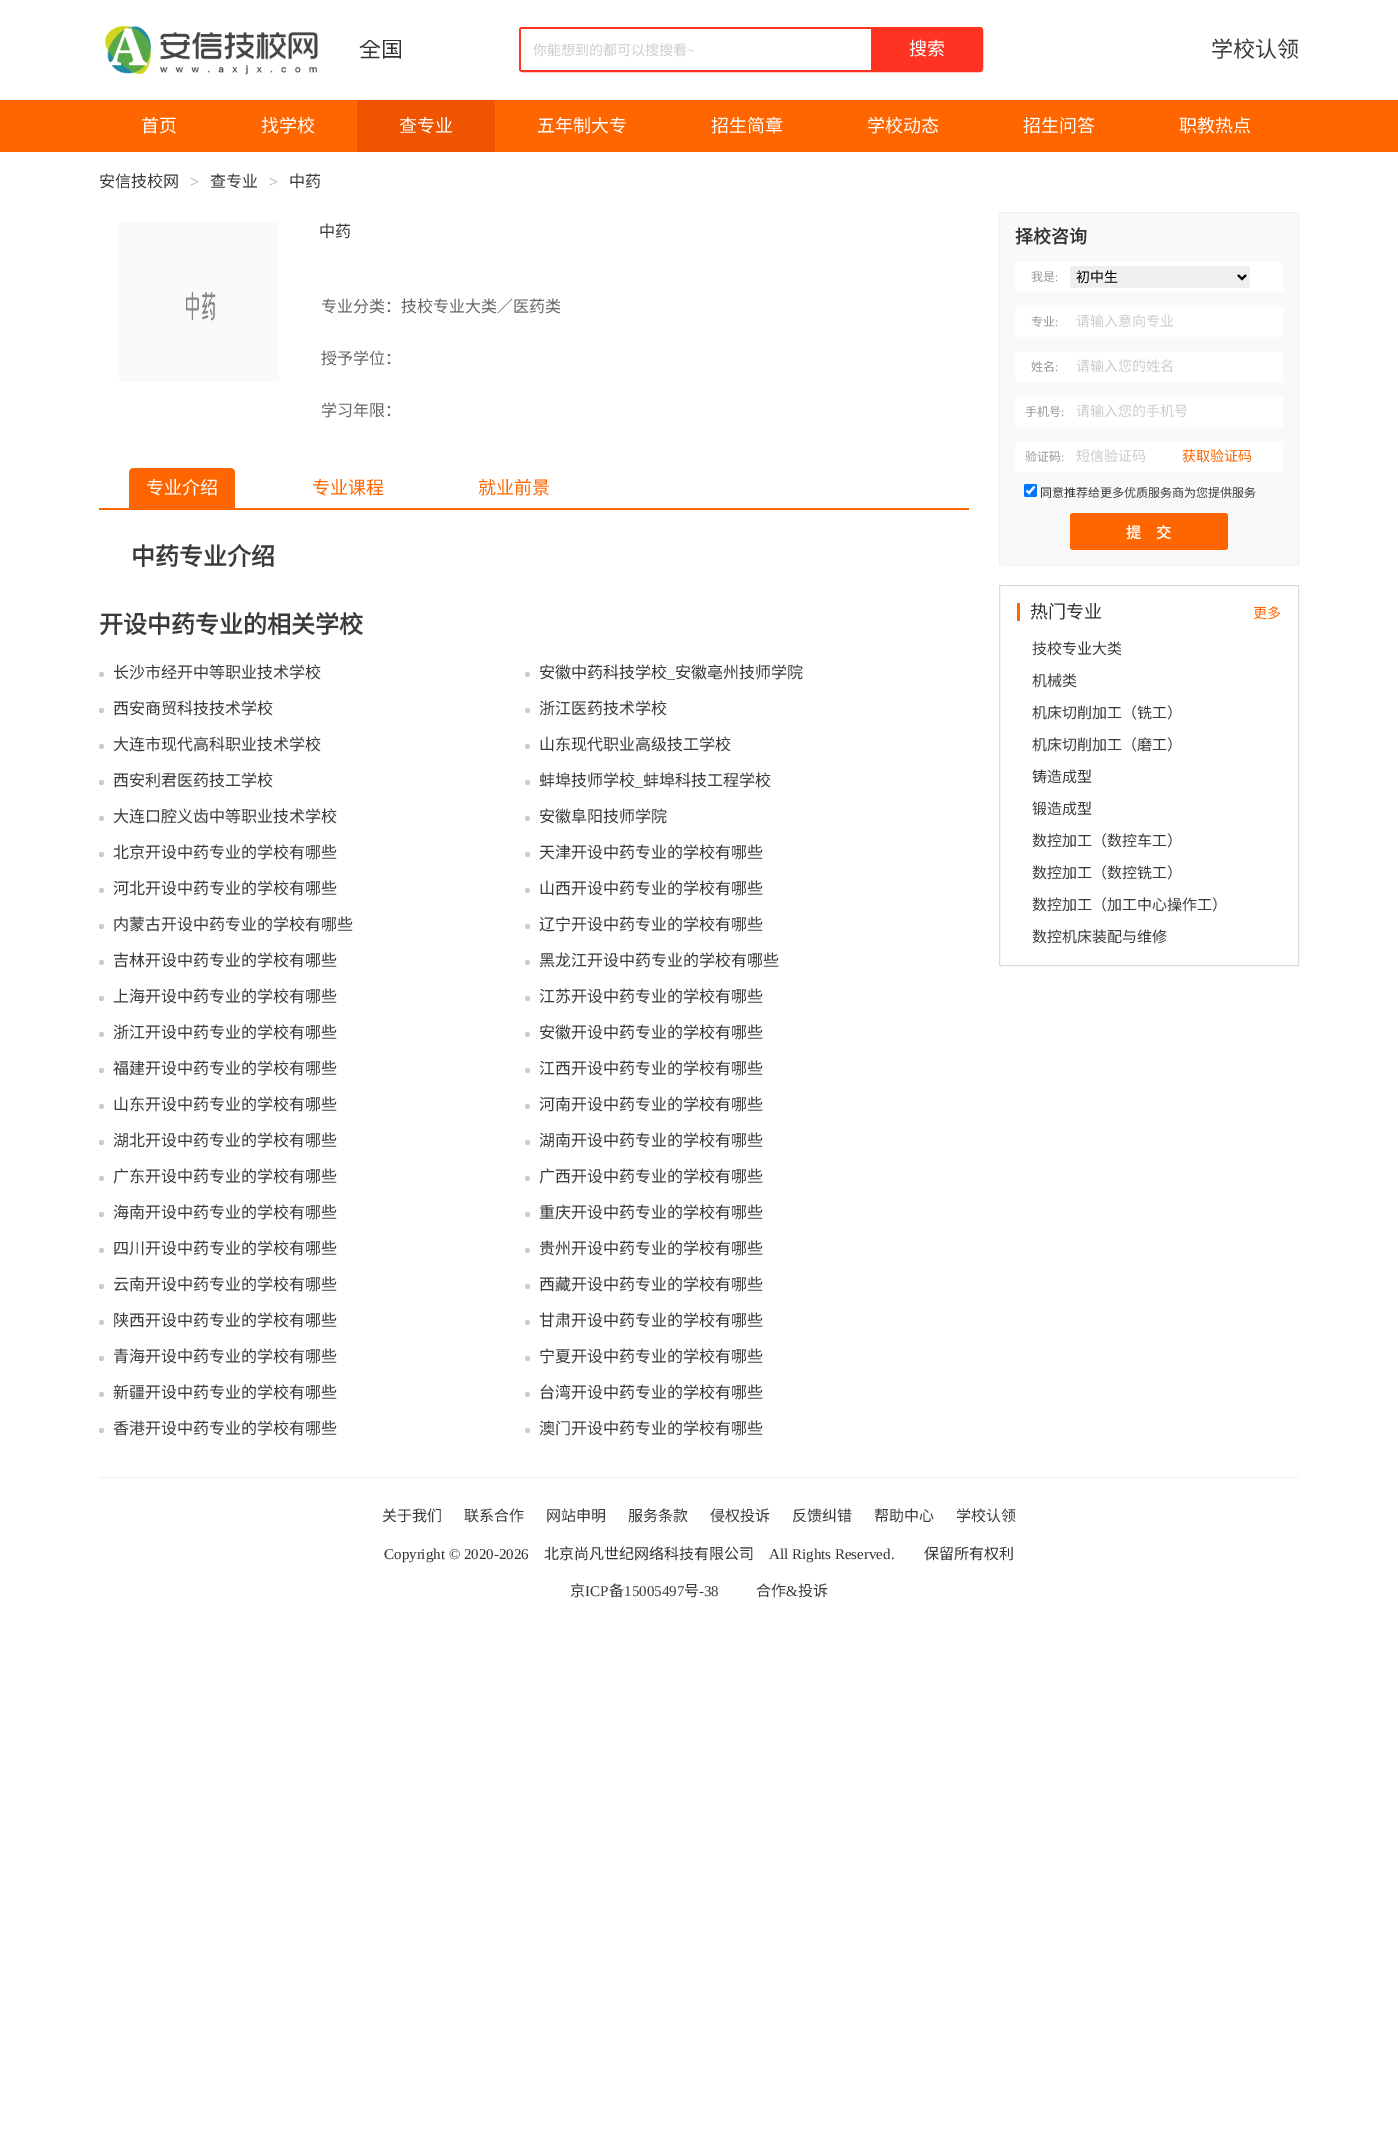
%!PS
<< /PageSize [1398 2129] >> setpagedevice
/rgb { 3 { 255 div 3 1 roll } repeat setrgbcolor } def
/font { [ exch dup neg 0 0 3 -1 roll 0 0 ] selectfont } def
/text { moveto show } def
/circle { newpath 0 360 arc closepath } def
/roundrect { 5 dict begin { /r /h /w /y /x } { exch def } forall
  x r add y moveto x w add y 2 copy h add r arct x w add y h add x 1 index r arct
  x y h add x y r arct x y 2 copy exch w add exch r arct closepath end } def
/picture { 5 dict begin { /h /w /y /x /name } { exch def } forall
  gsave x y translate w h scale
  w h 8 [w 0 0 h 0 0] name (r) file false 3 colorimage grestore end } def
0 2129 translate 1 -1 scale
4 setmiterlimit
255 255 255 rgb
0 0 1398 2129 rectfill
(img_01.rgb) 105 26 213 49 picture
255 51 34 rgb
520 28 462 43 2 roundrect gsave fill grestore
2 setlinewidth
stroke
255 255 255 rgb
521 29 350 41 rectfill
255 102 0 rgb
0 100 1398 52 rectfill
239 85 0 rgb
357 100 138 52 rectfill
(img_02.rgb) 119 222 160 160 picture
255 102 0 rgb
99 508 870 2 rectfill
134 468 moveto 96 0 rlineto 3 0 5 2 5 5 rcurveto 0 35 rlineto -106 0 rlineto 0 -35 rlineto 0 -3 2 -5 5 -5 rcurveto closepath fill
204 204 204 rgb
101.5 674.5 2.5 circle fill
527.5 674.5 2.5 circle fill
101.5 710.5 2.5 circle fill
527.5 710.5 2.5 circle fill
101.5 746.5 2.5 circle fill
527.5 746.5 2.5 circle fill
101.5 782.5 2.5 circle fill
527.5 782.5 2.5 circle fill
101.5 818.5 2.5 circle fill
527.5 818.5 2.5 circle fill
101.5 854.5 2.5 circle fill
527.5 854.5 2.5 circle fill
101.5 890.5 2.5 circle fill
527.5 890.5 2.5 circle fill
101.5 926.5 2.5 circle fill
527.5 926.5 2.5 circle fill
101.5 962.5 2.5 circle fill
527.5 962.5 2.5 circle fill
101.5 998.5 2.5 circle fill
527.5 998.5 2.5 circle fill
101.5 1034.5 2.5 circle fill
527.5 1034.5 2.5 circle fill
101.5 1070.5 2.5 circle fill
527.5 1070.5 2.5 circle fill
101.5 1106.5 2.5 circle fill
527.5 1106.5 2.5 circle fill
101.5 1142.5 2.5 circle fill
527.5 1142.5 2.5 circle fill
101.5 1178.5 2.5 circle fill
527.5 1178.5 2.5 circle fill
101.5 1214.5 2.5 circle fill
527.5 1214.5 2.5 circle fill
101.5 1250.5 2.5 circle fill
527.5 1250.5 2.5 circle fill
101.5 1286.5 2.5 circle fill
527.5 1286.5 2.5 circle fill
101.5 1322.5 2.5 circle fill
527.5 1322.5 2.5 circle fill
101.5 1358.5 2.5 circle fill
527.5 1358.5 2.5 circle fill
101.5 1394.5 2.5 circle fill
527.5 1394.5 2.5 circle fill
101.5 1430.5 2.5 circle fill
527.5 1430.5 2.5 circle fill
249 249 249 rgb
999.5 212.5 moveto 299 0 rlineto 0 352 rlineto -299 0 rlineto closepath gsave fill grestore
241 241 241 rgb
1 setlinewidth
stroke
255 255 255 rgb
1015 262 268 30 rectfill
239 239 239 rgb
1070 266 180 22 rectfill
0 0 0 rgb
2 setlinewidth
1238 275 moveto 4 4 rlineto 4 -4 rlineto stroke
255 255 255 rgb
1015 307 268 30 rectfill
1015 352 268 30 rectfill
1015 397 268 30 rectfill
1015 442 268 30 rectfill
0 117 255 rgb
1024 484 13 13 2 roundrect fill
255 255 255 rgb
2.1 setlinewidth
1026.5 490.5 moveto 2.5 2.5 rlineto 5.5 -6.5 rlineto stroke
255 102 0 rgb
1070 513 158 37 3 roundrect fill
218 218 218 rgb
1 setlinewidth
999.5 585.5 299 380 rectstroke
255 102 0 rgb
1017 603 3 18 rectfill
239 239 239 rgb
99 1477 1200 1 rectfill
gsave
359 40 160 20 rectclip
/NotoSansCJKSC-Regular 22 font
51 51 51 rgb
(全国) 359 57 text
grestore
/NotoSansCJKSC-Regular 14 font
204 204 204 rgb
(你能想到的都可以搜搜看) 533 55 text
/LiberationSerif-Regular 14 font
(~) 687 55 text
/NotoSansCJKSC-Regular 18 font
255 255 255 rgb
(搜索) 909 55 text
/NotoSansCJKSC-Regular 22 font
58 58 58 rgb
(学校认领) 1211 57 text
/NotoSansCJKSC-Regular 18 font
255 255 255 rgb
(首页) 141 132 text
(找学校) 261 132 text
(查专业) 399 132 text
(五年制大专) 537 132 text
(招生简章) 711 132 text
(学校动态) 867 132 text
(招生问答) 1023 132 text
(职教热点) 1179 132 text
/NotoSansCJKSC-Regular 16 font
58 58 58 rgb
(安信技校网) 99 187 text
/LiberationSerif-Regular 16 font
162 162 162 rgb
(>) 190 187 text
/NotoSansCJKSC-Regular 16 font
58 58 58 rgb
(查专业) 210 187 text
/LiberationSerif-Regular 16 font
162 162 162 rgb
(>) 269 187 text
/NotoSansCJKSC-Regular 16 font
58 58 58 rgb
(中药) 289 187 text
(中药) 319 237 text
102 102 102 rgb
(专业分类：技校专业大类／医药类) 321 312 text
(授予学位：) 321 364 text
(学习年限：) 321 416 text
/NotoSansCJKSC-Regular 18 font
255 255 255 rgb
(专业介绍) 146 494 text
255 102 0 rgb
(专业课程) 312 494 text
(就业前景) 478 494 text
/NotoSansCJKSC-Bold 24 font
58 58 58 rgb
(中药专业介绍) 131 565 text
(开设中药专业的相关学校) 99 633 text
/NotoSansCJKSC-Regular 16 font
(长沙市经开中等职业技术学校) 113 678 text
(安徽中药科技学校) 539 678 text
(安徽亳州技师学院) 675 678 text
/LiberationSerif-Regular 16 font
(_) 667 678 text
/NotoSansCJKSC-Regular 16 font
(西安商贸科技技术学校) 113 714 text
(浙江医药技术学校) 539 714 text
(大连市现代高科职业技术学校) 113 750 text
(山东现代职业高级技工学校) 539 750 text
(西安利君医药技工学校) 113 786 text
(蚌埠技师学校) 539 786 text
/LiberationSerif-Regular 16 font
(_) 635 786 text
/NotoSansCJKSC-Regular 16 font
(蚌埠科技工程学校) 643 786 text
(大连口腔义齿中等职业技术学校) 113 822 text
(安徽阜阳技师学院) 539 822 text
(北京开设中药专业的学校有哪些) 113 858 text
(天津开设中药专业的学校有哪些) 539 858 text
(河北开设中药专业的学校有哪些) 113 894 text
(山西开设中药专业的学校有哪些) 539 894 text
(内蒙古开设中药专业的学校有哪些) 113 930 text
(辽宁开设中药专业的学校有哪些) 539 930 text
(吉林开设中药专业的学校有哪些) 113 966 text
(黑龙江开设中药专业的学校有哪些) 539 966 text
(上海开设中药专业的学校有哪些) 113 1002 text
(江苏开设中药专业的学校有哪些) 539 1002 text
(浙江开设中药专业的学校有哪些) 113 1038 text
(安徽开设中药专业的学校有哪些) 539 1038 text
(福建开设中药专业的学校有哪些) 113 1074 text
(江西开设中药专业的学校有哪些) 539 1074 text
(山东开设中药专业的学校有哪些) 113 1110 text
(河南开设中药专业的学校有哪些) 539 1110 text
(湖北开设中药专业的学校有哪些) 113 1146 text
(湖南开设中药专业的学校有哪些) 539 1146 text
(广东开设中药专业的学校有哪些) 113 1182 text
(广西开设中药专业的学校有哪些) 539 1182 text
(海南开设中药专业的学校有哪些) 113 1218 text
(重庆开设中药专业的学校有哪些) 539 1218 text
(四川开设中药专业的学校有哪些) 113 1254 text
(贵州开设中药专业的学校有哪些) 539 1254 text
(云南开设中药专业的学校有哪些) 113 1290 text
(西藏开设中药专业的学校有哪些) 539 1290 text
(陕西开设中药专业的学校有哪些) 113 1326 text
(甘肃开设中药专业的学校有哪些) 539 1326 text
(青海开设中药专业的学校有哪些) 113 1362 text
(宁夏开设中药专业的学校有哪些) 539 1362 text
(新疆开设中药专业的学校有哪些) 113 1398 text
(台湾开设中药专业的学校有哪些) 539 1398 text
(香港开设中药专业的学校有哪些) 113 1434 text
(澳门开设中药专业的学校有哪些) 539 1434 text
/NotoSansCJKSC-Bold 18 font
51 51 51 rgb
(择校咨询) 1015 243 text
/NotoSansCJKSC-Regular 12 font
153 153 153 rgb
(我是) 1031 281 text
/LiberationSerif-Regular 12 font
(:) 1055 281 text
/NotoSansCJKSC-Regular 14 font
0 0 0 rgb
(初中生) 1076 282 text
/NotoSansCJKSC-Regular 12 font
153 153 153 rgb
(专业) 1031 326 text
/LiberationSerif-Regular 12 font
(:) 1055 326 text
/NotoSansCJKSC-Regular 14 font
204 204 204 rgb
(请输入意向专业) 1076 326 text
/NotoSansCJKSC-Regular 12 font
153 153 153 rgb
(姓名) 1031 371 text
/LiberationSerif-Regular 12 font
(:) 1055 371 text
/NotoSansCJKSC-Regular 14 font
204 204 204 rgb
(请输入您的姓名) 1076 371 text
/NotoSansCJKSC-Regular 12 font
153 153 153 rgb
(手机号) 1025 416 text
/LiberationSerif-Regular 12 font
(:) 1061 416 text
/NotoSansCJKSC-Regular 14 font
204 204 204 rgb
(请输入您的手机号) 1076 416 text
/NotoSansCJKSC-Regular 12 font
153 153 153 rgb
(验证码) 1025 461 text
/LiberationSerif-Regular 12 font
(:) 1061 461 text
/NotoSansCJKSC-Regular 14 font
204 204 204 rgb
(短信验证码) 1076 461 text
255 102 0 rgb
(获取验证码) 1182 461 text
/NotoSansCJKSC-Regular 12 font
58 58 58 rgb
(同意推荐给更多优质服务商为您提供服务) 1040 497 text
/NotoSansCJKSC-Bold 15 font
255 255 255 rgb
(提) 1126 538 text
(交) 1156 538 text
gsave
1020 603 97 18 rectclip
/NotoSansCJKSC-Regular 18 font
51 51 51 rgb
(热门专业) 1030 618 text
grestore
/NotoSansCJKSC-Regular 14 font
255 102 0 rgb
(更多) 1253 618 text
/NotoSansCJKSC-Regular 15 font
58 58 58 rgb
(技校专业大类) 1032 654 text
(机械类) 1032 686 text
(机床切削加工（铣工）) 1032 718 text
(机床切削加工（磨工）) 1032 750 text
(铸造成型) 1032 782 text
(锻造成型) 1032 814 text
(数控加工（数控车工）) 1032 846 text
(数控加工（数控铣工）) 1032 878 text
(数控加工（加工中心操作工）) 1032 910 text
(数控机床装配与维修) 1032 942 text
(关于我们) 382 1521 text
(联系合作) 464 1521 text
(网站申明) 546 1521 text
(服务条款) 628 1521 text
(侵权投诉) 710 1521 text
(反馈纠错) 792 1521 text
(帮助中心) 874 1521 text
(学校认领) 956 1521 text
/LiberationSerif-Regular 15 font
51 51 51 rgb
(Copyright © 2020-2026) 384 1559 text
/NotoSansCJKSC-Regular 15 font
(北京尚凡世纪网络科技有限公司) 544 1559 text
/LiberationSerif-Regular 15 font
(All Rights Reserved.) 769 1559 text
/NotoSansCJKSC-Regular 15 font
(保留所有权利) 924 1559 text
58 58 58 rgb
(京) 570 1596 text
/LiberationSerif-Regular 15 font
(ICP) 585 1596 text
/NotoSansCJKSC-Regular 15 font
(备) 609 1596 text
/LiberationSerif-Regular 15 font
(15005497) 624 1596 text
/NotoSansCJKSC-Regular 15 font
(号) 684 1596 text
/LiberationSerif-Regular 15 font
(-38) 699 1596 text
/NotoSansCJKSC-Regular 15 font
(合作) 756 1596 text
/LiberationSerif-Regular 15 font
(&) 786 1596 text
/NotoSansCJKSC-Regular 15 font
(投诉) 798 1596 text
showpage
